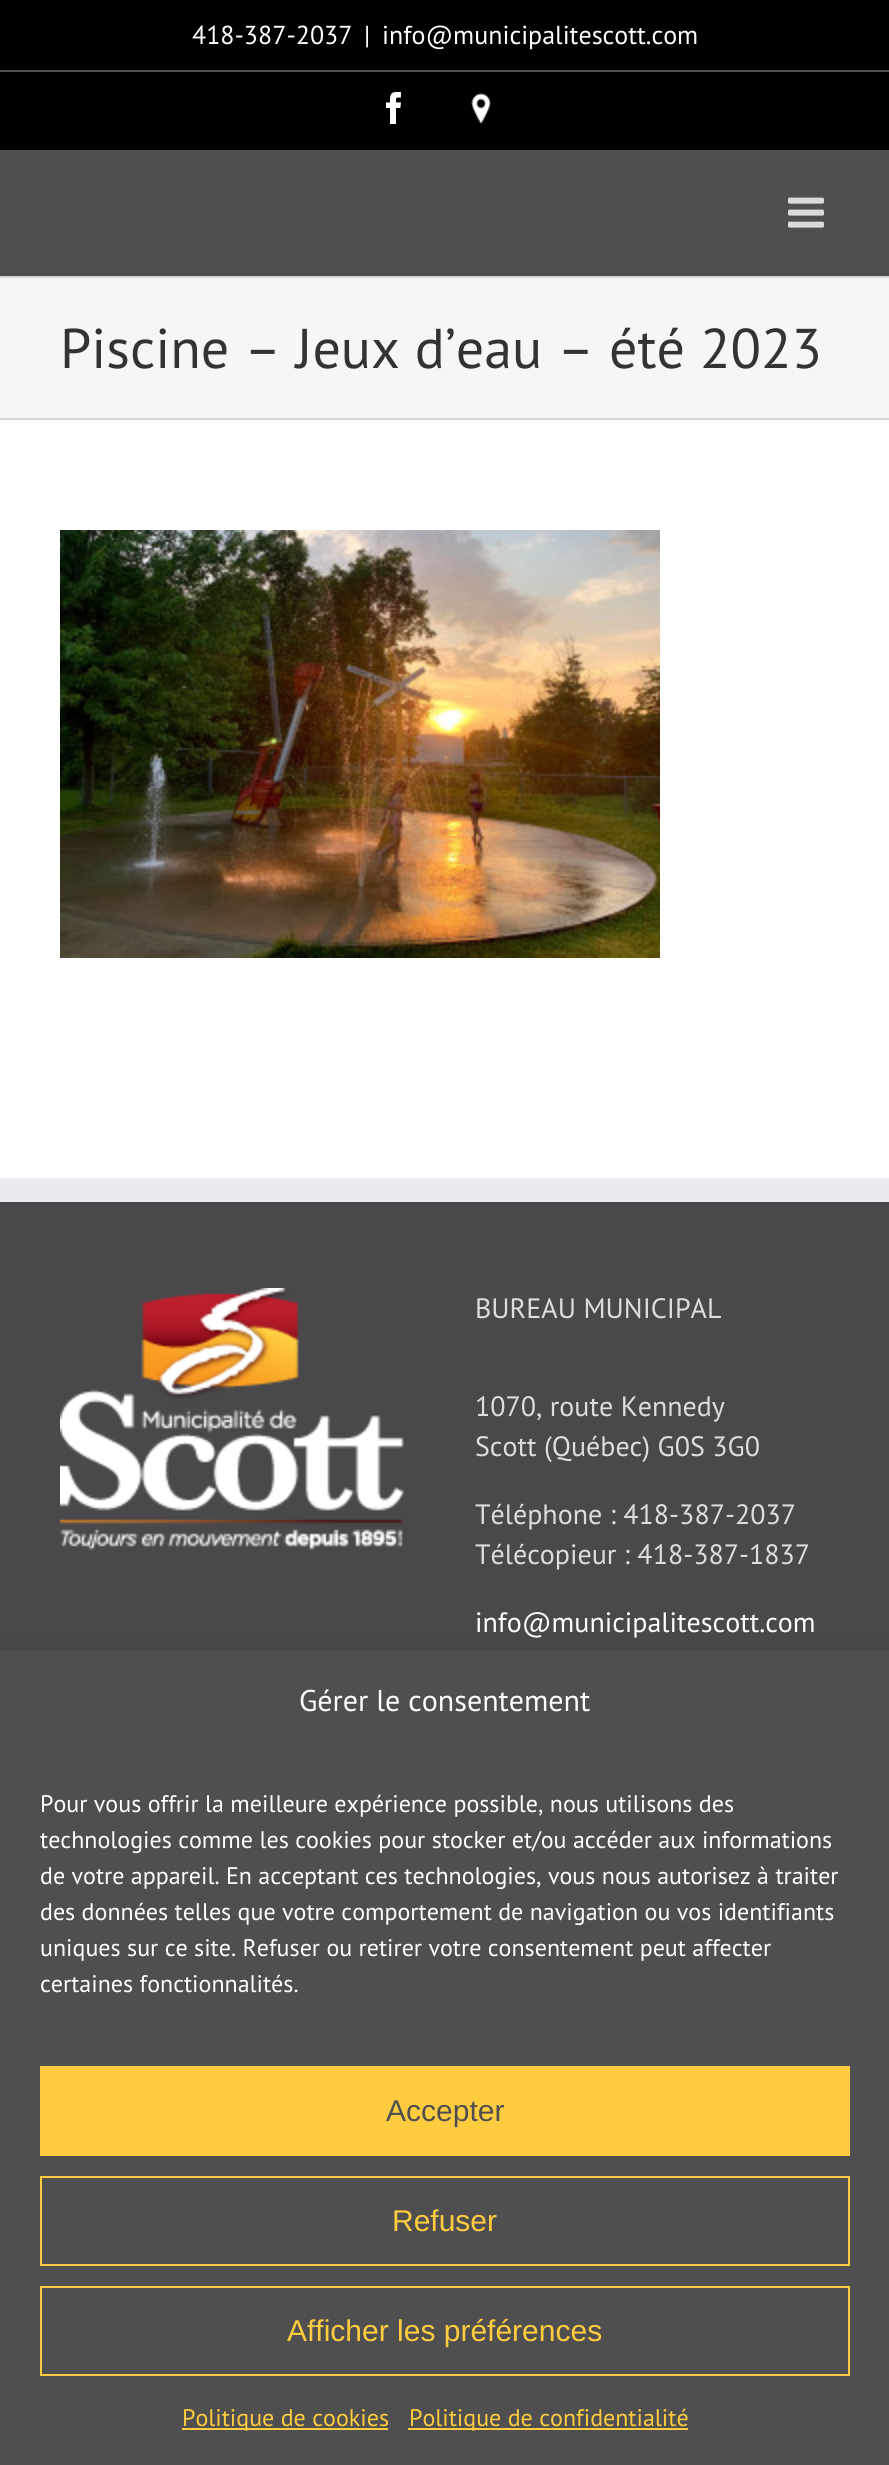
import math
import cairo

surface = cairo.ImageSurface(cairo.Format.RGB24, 889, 2465)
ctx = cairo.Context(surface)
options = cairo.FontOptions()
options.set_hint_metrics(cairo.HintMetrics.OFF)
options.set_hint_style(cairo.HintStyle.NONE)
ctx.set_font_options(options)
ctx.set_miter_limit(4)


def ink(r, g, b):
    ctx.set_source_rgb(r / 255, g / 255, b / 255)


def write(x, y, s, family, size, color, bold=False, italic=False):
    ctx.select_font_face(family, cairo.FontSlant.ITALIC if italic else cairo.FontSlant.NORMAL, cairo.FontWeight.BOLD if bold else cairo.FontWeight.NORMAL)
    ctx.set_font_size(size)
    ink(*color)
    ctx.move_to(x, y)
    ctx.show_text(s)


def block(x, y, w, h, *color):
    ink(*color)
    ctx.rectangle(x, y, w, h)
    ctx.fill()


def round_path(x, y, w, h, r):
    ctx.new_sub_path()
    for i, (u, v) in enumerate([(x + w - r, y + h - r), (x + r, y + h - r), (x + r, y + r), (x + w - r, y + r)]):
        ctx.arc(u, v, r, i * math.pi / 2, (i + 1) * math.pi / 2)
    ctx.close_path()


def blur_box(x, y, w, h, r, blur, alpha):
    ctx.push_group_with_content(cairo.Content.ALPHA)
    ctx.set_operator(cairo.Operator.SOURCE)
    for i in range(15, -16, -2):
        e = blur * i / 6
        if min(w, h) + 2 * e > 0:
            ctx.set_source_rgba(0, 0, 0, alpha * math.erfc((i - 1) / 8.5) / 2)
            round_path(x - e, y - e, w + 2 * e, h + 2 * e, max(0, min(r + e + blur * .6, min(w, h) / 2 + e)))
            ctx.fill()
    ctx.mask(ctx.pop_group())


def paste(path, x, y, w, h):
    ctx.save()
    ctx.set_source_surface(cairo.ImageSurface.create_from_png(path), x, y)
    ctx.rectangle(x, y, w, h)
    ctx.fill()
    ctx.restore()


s1 = dict(family="PT Sans", size=26, color=(255, 255, 255))
s2 = dict(family="PT Sans", size=56, color=(51, 51, 51))
s3 = dict(family="PT Sans", size=28, color=(221, 221, 221))
s4 = dict(family="PT Sans", size=28, color=(255, 255, 255))
s5 = dict(family="PT Sans", size=30, color=(255, 255, 255))
s6 = dict(family="PT Sans", size=24, color=(255, 255, 255))
s7 = dict(family="Liberation Sans", size=30, color=(79, 79, 79))
s8 = dict(family="Liberation Sans", size=30, color=(255, 204, 64))
s9 = dict(family="PT Sans", size=24, color=(255, 204, 64))

ink(255, 255, 255)
ctx.paint()
block(0, 0, 889, 150, 0, 0, 0)
block(0, 150, 889, 126, 79, 79, 79)
block(0, 70, 889, 2, 79, 79, 79)
write(192, 44, "418-387-2037", **s1)
write(364, 44, "|", **s1)
write(382, 44, "info@municipalitescott.com", **s1)
paste("pic1.png", 386, 92, 15, 32)
paste("pic2.png", 471, 93, 20, 31)
paste("pic3.png", 788, 197, 36, 31)
block(0, 278, 889, 140, 246, 246, 246)
block(0, 276, 889, 2, 210, 211, 212)
block(0, 418, 889, 2, 210, 211, 212)
write(60, 368, "Piscine – Jeux d’eau – été 2023", **s2)
paste("pic4.png", 60, 530, 600, 428)
block(0, 1202, 889, 448, 73, 73, 76)
block(0, 1178, 889, 24, 233, 234, 238)
paste("pic5.png", 60, 1288, 344, 263)
write(475, 1318, "BUREAU MUNICIPAL", **s3)
write(475, 1416, "1070, route Kennedy", **s3)
write(475, 1456, "Scott (Québec) G0S 3G0", **s3)
write(475, 1524, "Téléphone : 418-387-2037", **s3)
write(475, 1564, "Télécopieur : 418-387-1837", **s3)
write(475, 1632, "info@municipalitescott.com", **s4)
ink(0, 0, 0)
blur_box(0, 1670, 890, 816, 0, 20, 0.19)
block(0, 1650, 889, 815, 79, 79, 79)
write(299, 1711, "Gérer le consentement", **s5)
write(40, 1812, "Pour vous offrir la meilleure expérience possible, nous utilisons des", **s6)
write(40, 1848, "technologies comme les cookies pour stocker et/ou accéder aux informations", **s6)
write(40, 1884, "de votre appareil. En acceptant ces technologies, vous nous autorisez à traiter", **s6)
write(40, 1920, "des données telles que votre comportement de navigation ou vos identifiants", **s6)
write(40, 1956, "uniques sur ce site. Refuser ou retirer votre consentement peut affecter", **s6)
write(40, 1992, "certaines fonctionnalités.", **s6)
block(40, 2066, 810, 90, 255, 204, 64)
write(386, 2121, "Accepter", **s7)
ctx.rectangle(41, 2177, 808, 88)
ink(255, 204, 64)
ctx.stroke()
write(392, 2231, "Refuser", **s8)
ctx.rectangle(41, 2287, 808, 88)
ctx.stroke()
write(287, 2341, "Afficher les préférences", **s8)
block(182, 2428, 206, 2, 255, 204, 64)
write(182, 2426, "Politique de cookies", **s9)
block(408, 2428, 280, 2, 255, 204, 64)
write(409, 2426, "Politique de confidentialité", **s9)
surface.write_to_png("screenshot.png")
